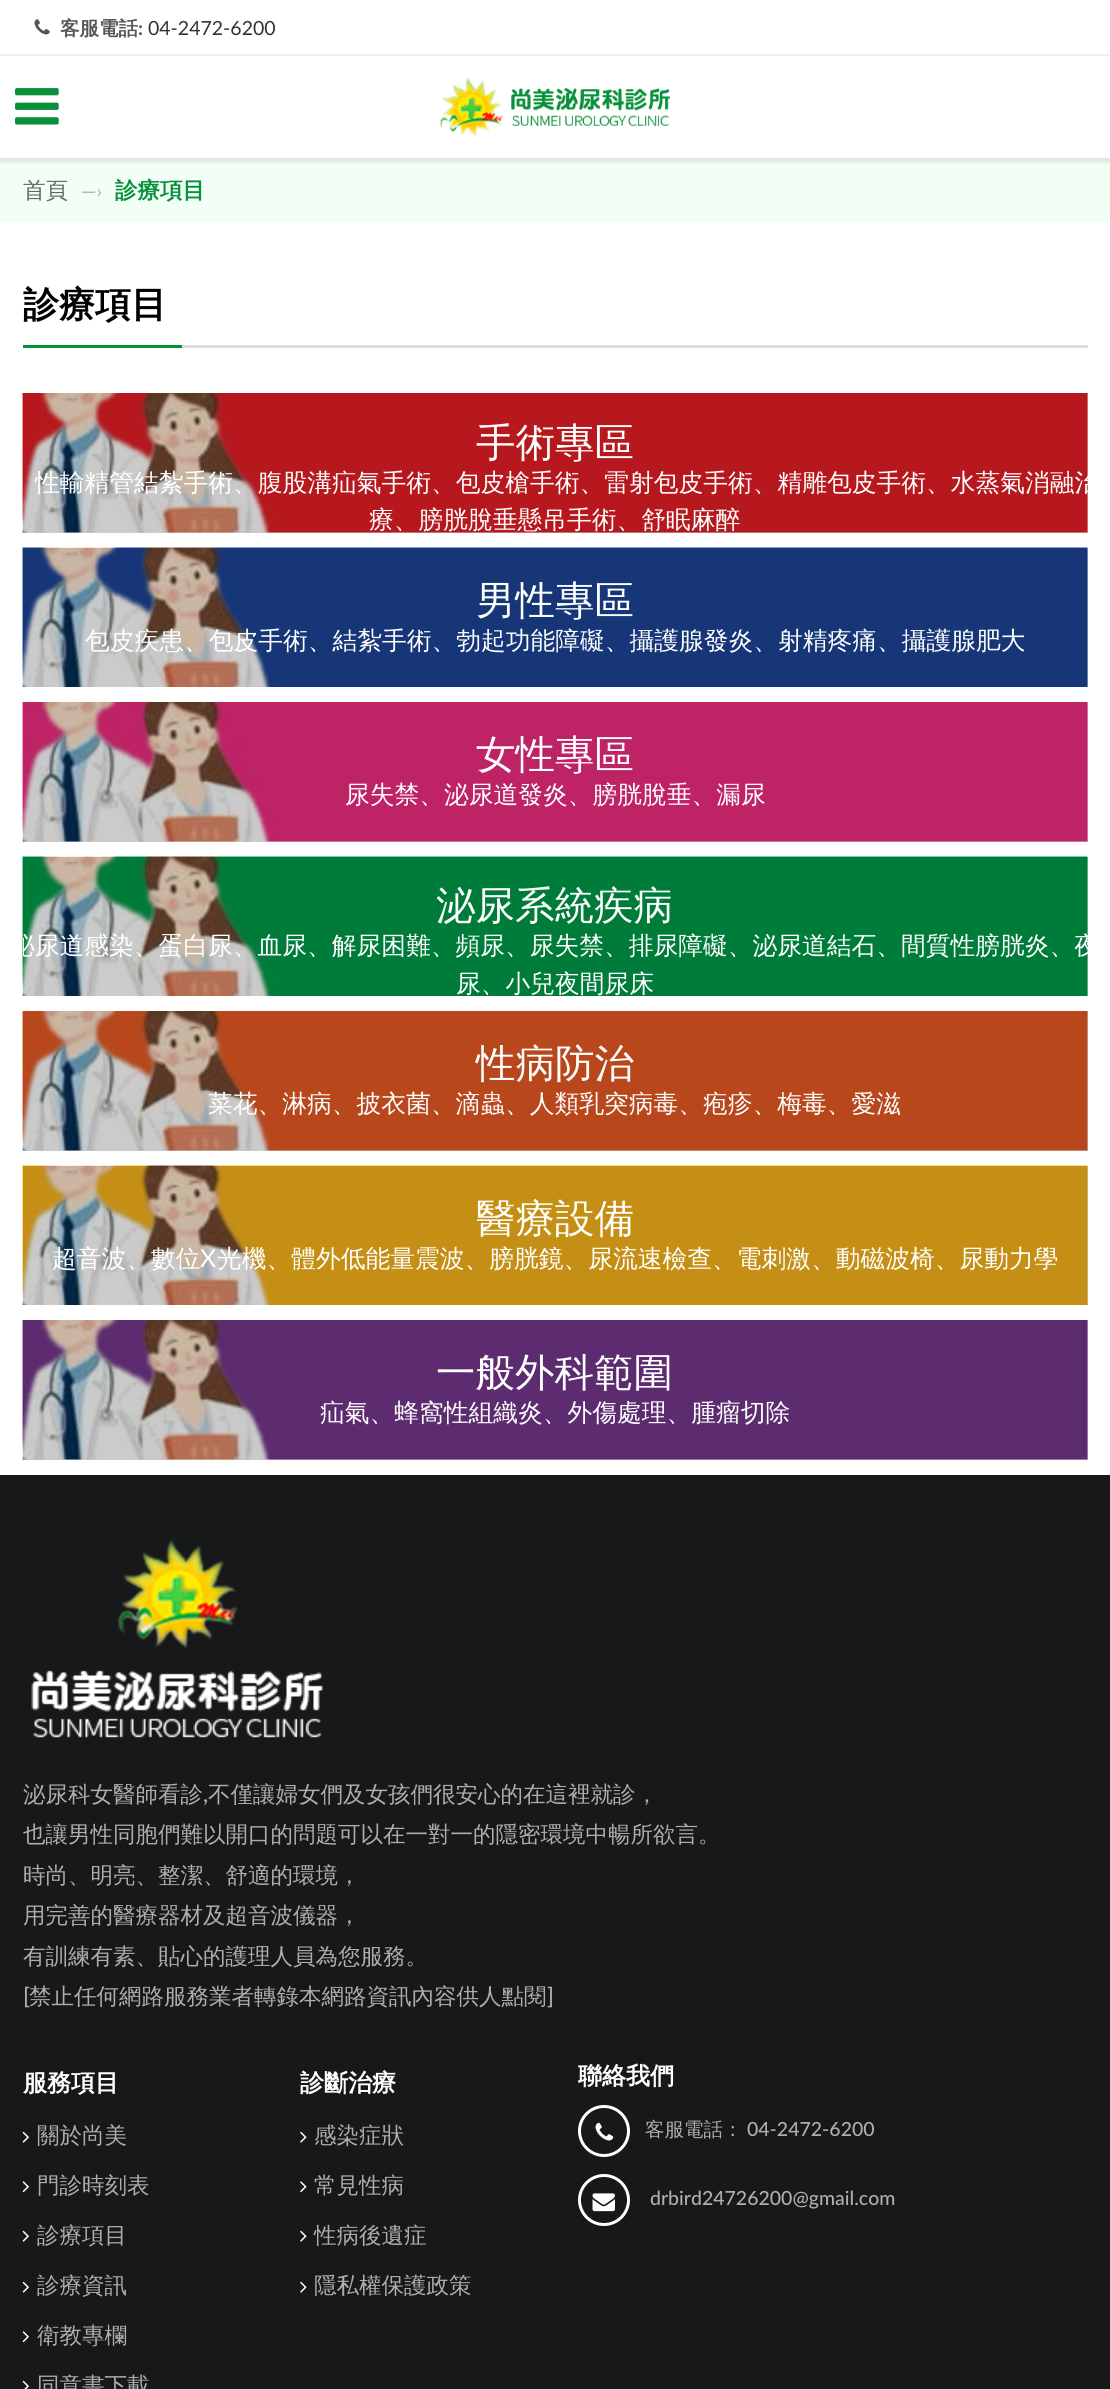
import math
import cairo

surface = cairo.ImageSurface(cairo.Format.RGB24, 1110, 2389)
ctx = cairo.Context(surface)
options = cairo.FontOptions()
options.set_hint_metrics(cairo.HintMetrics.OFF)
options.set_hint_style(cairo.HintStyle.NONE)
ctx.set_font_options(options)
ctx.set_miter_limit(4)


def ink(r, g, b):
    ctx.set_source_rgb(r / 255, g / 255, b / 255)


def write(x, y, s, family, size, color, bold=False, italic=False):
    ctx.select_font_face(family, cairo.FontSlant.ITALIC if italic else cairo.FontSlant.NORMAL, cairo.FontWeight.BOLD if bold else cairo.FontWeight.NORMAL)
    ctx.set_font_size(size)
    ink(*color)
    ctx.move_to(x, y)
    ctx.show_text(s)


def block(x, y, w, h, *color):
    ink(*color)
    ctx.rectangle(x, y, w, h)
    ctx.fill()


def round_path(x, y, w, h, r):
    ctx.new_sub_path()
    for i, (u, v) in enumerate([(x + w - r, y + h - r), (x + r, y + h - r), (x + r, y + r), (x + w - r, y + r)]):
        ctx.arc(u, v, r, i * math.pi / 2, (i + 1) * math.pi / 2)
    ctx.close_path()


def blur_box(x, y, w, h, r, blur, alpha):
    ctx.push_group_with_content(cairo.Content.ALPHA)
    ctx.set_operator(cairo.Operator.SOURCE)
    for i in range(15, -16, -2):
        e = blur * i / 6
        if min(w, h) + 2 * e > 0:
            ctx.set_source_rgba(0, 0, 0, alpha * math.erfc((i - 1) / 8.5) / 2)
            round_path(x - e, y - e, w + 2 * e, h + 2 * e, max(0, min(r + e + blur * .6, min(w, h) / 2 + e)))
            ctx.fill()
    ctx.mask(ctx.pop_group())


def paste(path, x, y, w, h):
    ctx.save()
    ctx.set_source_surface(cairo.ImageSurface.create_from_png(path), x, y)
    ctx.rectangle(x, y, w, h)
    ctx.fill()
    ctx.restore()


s1 = dict(family="WenQuanYi Zen Hei", size=19.5, color=(85, 85, 85), bold=True)
s2 = dict(family="Lato", size=19.5, color=(85, 85, 85), bold=True)
s3 = dict(family="Lato", size=19.5, color=(51, 51, 51))
s4 = dict(family="WenQuanYi Zen Hei Medium", size=22.5, color=(102, 102, 102))
s5 = dict(family="Lato", size=19.5, color=(174, 174, 174))
s6 = dict(family="WenQuanYi Zen Hei", size=22.5, color=(7, 145, 58), bold=True)
s7 = dict(family="WenQuanYi Zen Hei", size=36, color=(0, 0, 0), bold=True)
s8 = dict(family="WenQuanYi Zen Hei Medium", size=39.5, color=(255, 255, 255))
s9 = dict(family="WenQuanYi Zen Hei Medium", size=24.75, color=(255, 255, 255))
s10 = dict(family="Lato", size=24.75, color=(255, 255, 255))
s11 = dict(family="WenQuanYi Zen Hei Medium", size=22.5, color=(174, 174, 174))
s12 = dict(family="Lato Medium", size=22.5, color=(174, 174, 174))
s13 = dict(family="WenQuanYi Zen Hei", size=24, color=(255, 255, 255), bold=True)
s14 = dict(family="WenQuanYi Zen Hei Medium", size=19.5, color=(174, 174, 174))
s15 = dict(family="Lato Medium", size=19.5, color=(174, 174, 174))

ink(255, 255, 255)
ctx.paint()
block(23, 1320, 1065, 140, 204, 204, 204)
block(1087, 1166, 1, 139, 204, 204, 204)
block(23, 1011, 1065, 140, 204, 204, 204)
block(1087, 857, 1, 139, 204, 204, 204)
block(23, 702, 1065, 140, 204, 204, 204)
block(1087, 548, 1, 139, 204, 204, 204)
block(23, 393, 1065, 140, 204, 204, 204)
block(0, 158, 1110, 64, 241, 255, 246)
ink(0, 0, 0)
blur_box(0, 5, 1110, 157, 0, 2, 0.1)
block(0, 2, 1110, 156, 255, 255, 255)
block(0, 54, 1110, 2, 238, 238, 238)
paste("pic1.png", 34, 19, 16, 16)
write(60, 35, "客服電話", **s1)
write(138, 35, ":", **s2)
write(148, 35, "04-2472-6200", **s3)
paste("pic2.png", 15, 88, 44, 37)
paste("pic3.png", 439, 77, 232, 60)
write(23, 198, "首頁", **s4)
write(81, 198, "—›", **s5)
write(115, 198, "診療項目", **s6)
block(182, 345, 906, 3, 221, 221, 221)
block(23, 345, 159, 3, 7, 145, 58)
write(23, 317, "診療項目", **s7)
paste("pic4.png", 22, 393, 1066, 140)
write(476, 456, "手術專區", **s8)
ctx.save()
ctx.rectangle(23, 393, 1065, 140)
ctx.clip()
write(35, 491, "性輸精管結紮手術、腹股溝疝氣手術、包皮槍手術、雷射包皮手術、精雕包皮手術、水蒸氣消融治", **s9)
ctx.restore()
write(369, 528, "療、膀胱脫垂懸吊手術、舒眠麻醉", **s9)
paste("pic5.png", 22, 547, 1066, 140)
write(476, 614, "男性專區", **s8)
write(85, 649, "包皮疾患、包皮手術、結紮手術、勃起功能障礙、攝護腺發炎、射精疼痛、攝護腺肥大", **s9)
paste("pic6.png", 22, 702, 1066, 140)
write(476, 768, "女性專區", **s8)
write(345, 803, "尿失禁、泌尿道發炎、膀胱脫垂、漏尿", **s9)
paste("pic7.png", 22, 856, 1066, 140)
write(436, 919, "泌尿系統疾病", **s8)
ctx.save()
ctx.rectangle(23, 857, 1065, 139)
ctx.clip()
write(10, 954, "泌尿道感染、蛋白尿、血尿、解尿困難、頻尿、尿失禁、排尿障礙、泌尿道結石、間質性膀胱炎、夜", **s9)
ctx.restore()
write(456, 992, "尿、小兒夜間尿床", **s9)
paste("pic8.png", 22, 1011, 1066, 140)
write(476, 1077, "性病防治", **s8)
write(208, 1112, "菜花、淋病、披衣菌、滴蟲、人類乳突病毒、疱疹、梅毒、愛滋", **s9)
paste("pic9.png", 22, 1165, 1066, 140)
write(476, 1232, "醫療設備", **s8)
write(52, 1267, "超音波、數位", **s9)
write(200, 1267, "X", **s10)
write(217, 1267, "光機、體外低能量震波、膀胱鏡、尿流速檢查、電刺激、動磁波椅、尿動力學", **s9)
paste("pic10.png", 22, 1320, 1066, 140)
write(436, 1386, "一般外科範圍", **s8)
write(320, 1421, "疝氣、蜂窩性組織炎、外傷處理、腫瘤切除", **s9)
block(0, 1475, 1110, 914, 22, 24, 26)
paste("pic11.png", 31, 1539, 292, 199)
write(23, 1802, "泌尿科女醫師看診", **s11)
write(203, 1802, ",", **s12)
write(208, 1802, "不僅讓婦女們及女孩們很安心的在這裡就診，", **s11)
write(23, 1842, "也讓男性同胞們難以開口的問題可以在一對一的隱密環境中暢所欲言。", **s11)
write(23, 1883, "時尚、明亮、整潔、舒適的環境，", **s11)
write(23, 1923, "用完善的醫療器材及超音波儀器，", **s11)
write(23, 1964, "有訓練有素、貼心的護理人員為您服務。", **s11)
write(23, 2004, "[", **s12)
write(29, 2004, "禁止任何網路服務業者轉錄本網路資訊內容供人點閱", **s11)
write(547, 2004, "]", **s12)
write(23, 2091, "服務項目", **s13)
paste("pic12.png", 22, 2131, 7, 12)
write(37, 2143, "關於尚美", **s11)
paste("pic13.png", 22, 2181, 7, 12)
write(37, 2193, "門診時刻表", **s11)
paste("pic12.png", 22, 2230, 7, 12)
write(37, 2243, "診療項目", **s11)
paste("pic12.png", 22, 2281, 7, 12)
write(37, 2293, "診療資訊", **s11)
paste("pic13.png", 22, 2331, 7, 12)
write(37, 2343, "衛教專欄", **s11)
paste("pic14.png", 22, 2380, 7, 9)
write(37, 2393, "同意書下載", **s11)
write(300, 2091, "診斷治療", **s13)
paste("pic15.png", 300, 2131, 7, 12)
write(314, 2143, "感染症狀", **s11)
paste("pic16.png", 300, 2181, 7, 12)
write(314, 2193, "常見性病", **s11)
paste("pic15.png", 300, 2230, 7, 12)
write(314, 2243, "性病後遺症", **s11)
paste("pic15.png", 300, 2281, 7, 12)
write(314, 2293, "隱私權保護政策", **s11)
write(578, 2084, "聯絡我們", **s13)
ctx.new_path()
ctx.arc(604, 2131, 24.5, 0, 2 * math.pi)
ctx.set_line_width(3)
ctx.stroke()
paste("pic17.png", 595, 2122, 19, 19)
write(645, 2136, "客服電話：", **s14)
write(747, 2136, "04-2472-6200", **s15)
ctx.new_path()
ctx.arc(604, 2200, 24.5, 0, 2 * math.pi)
ink(255, 255, 255)
ctx.stroke()
paste("pic18.png", 592, 2193, 23, 19)
write(650, 2205, "drbird24726200@gmail.com", **s15)
surface.write_to_png("screenshot.png")
